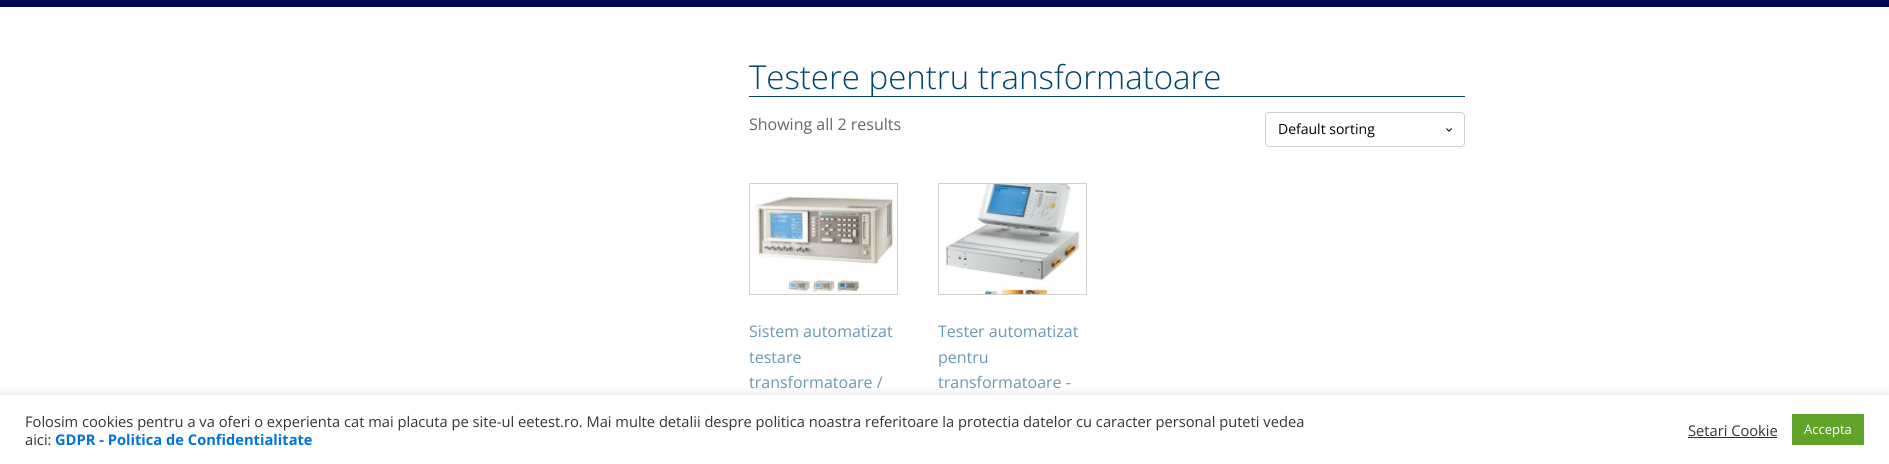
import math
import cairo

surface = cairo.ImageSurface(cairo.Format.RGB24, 1889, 464)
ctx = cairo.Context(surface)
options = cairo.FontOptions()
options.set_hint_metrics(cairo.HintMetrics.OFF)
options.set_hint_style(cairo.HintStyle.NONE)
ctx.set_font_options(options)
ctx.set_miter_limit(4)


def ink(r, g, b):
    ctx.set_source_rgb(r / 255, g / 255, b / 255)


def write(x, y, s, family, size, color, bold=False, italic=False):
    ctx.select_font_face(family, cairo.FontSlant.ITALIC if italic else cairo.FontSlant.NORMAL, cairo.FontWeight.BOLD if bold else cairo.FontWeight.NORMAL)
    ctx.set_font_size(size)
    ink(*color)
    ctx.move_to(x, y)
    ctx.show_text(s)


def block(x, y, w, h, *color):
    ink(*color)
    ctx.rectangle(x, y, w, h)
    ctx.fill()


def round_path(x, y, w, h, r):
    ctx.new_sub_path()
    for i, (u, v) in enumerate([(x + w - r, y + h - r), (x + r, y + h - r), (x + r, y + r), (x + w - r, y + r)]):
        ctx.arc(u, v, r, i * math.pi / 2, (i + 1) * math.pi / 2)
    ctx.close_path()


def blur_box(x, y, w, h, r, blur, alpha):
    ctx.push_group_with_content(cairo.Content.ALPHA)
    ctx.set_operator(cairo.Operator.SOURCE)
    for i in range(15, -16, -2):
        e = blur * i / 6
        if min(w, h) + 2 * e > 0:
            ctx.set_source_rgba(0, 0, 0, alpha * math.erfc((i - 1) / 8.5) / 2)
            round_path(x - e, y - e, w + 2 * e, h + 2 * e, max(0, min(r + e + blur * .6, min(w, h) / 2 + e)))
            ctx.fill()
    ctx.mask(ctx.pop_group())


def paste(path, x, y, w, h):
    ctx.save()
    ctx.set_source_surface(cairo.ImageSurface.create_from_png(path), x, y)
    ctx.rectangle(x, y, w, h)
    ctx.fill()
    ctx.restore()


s1 = dict(family="Open Sans Light", size=33, color=(1, 69, 106))
s2 = dict(family="Open Sans", size=16, color=(102, 102, 102))
s3 = dict(family="Open Sans", size=14, color=(0, 0, 0))
s4 = dict(family="Open Sans", size=16, color=(103, 153, 178))
s5 = dict(family="Open Sans", size=14.67, color=(51, 51, 51))
s6 = dict(family="Open Sans", size=14.67, color=(0, 116, 219), bold=True)
s7 = dict(family="Open Sans", size=13, color=(255, 255, 255))

ink(255, 255, 255)
ctx.paint()
gradient = cairo.LinearGradient(945, -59, 945, 7)
gradient.add_color_stop_rgba(0, 0.004, 0.275, 0.427, 1)
gradient.add_color_stop_rgba(1, 0, 0.02, 0.318, 1)
ctx.set_source(gradient)
ctx.rectangle(0, 0, 1889, 7)
ctx.fill()
block(749, 96, 716, 1, 1, 69, 106)
write(749, 89, "Testere pentru transformatoare", **s1)
write(749, 130, "Showing all 2 results", **s2)
paste("pic1.png", 1446, 128, 6, 4)
round_path(1265.5, 112.5, 199, 34, 3.5)
ink(211, 206, 210)
ctx.set_line_width(1)
ctx.stroke()
write(1278, 134, "Default sorting", **s3)
ctx.rectangle(749.5, 183.5, 148, 111)
ink(211, 206, 210)
ctx.stroke()
paste("pic2.png", 755, 196, 139, 98)
write(749, 337, "Sistem automatizat", **s4)
write(749, 363, "testare", **s4)
write(749, 388, "transformatoare /", **s4)
ctx.rectangle(938.5, 183.5, 148, 111)
ink(211, 206, 210)
ctx.stroke()
paste("pic3.png", 945, 184, 135, 110)
write(938, 337, "Tester automatizat", **s4)
write(938, 363, "pentru", **s4)
write(938, 388, "transformatoare -", **s4)
ink(172, 171, 171)
blur_box(0, 394, 1889, 69, 0, 5, 0.3)
block(0, 395, 1889, 69, 255, 255, 255)
write(25, 427, "Folosim cookies pentru a va oferi o experienta cat mai placuta pe site-ul eetest.ro. Mai multe detalii despre politica noastra referitoare la protectia datelor cu caracter personal puteti vedea", **s5)
write(25, 445, "aici:", **s5)
write(55, 445, "GDPR - Politica de Confidentialitate", **s6)
write(1688, 436, "Setari Cookie", **s5)
block(1688, 437, 89, 1, 51, 51, 51)
block(1792, 414, 72, 31, 97, 162, 41)
write(1804, 434, "Accepta", **s7)
surface.write_to_png("screenshot.png")
